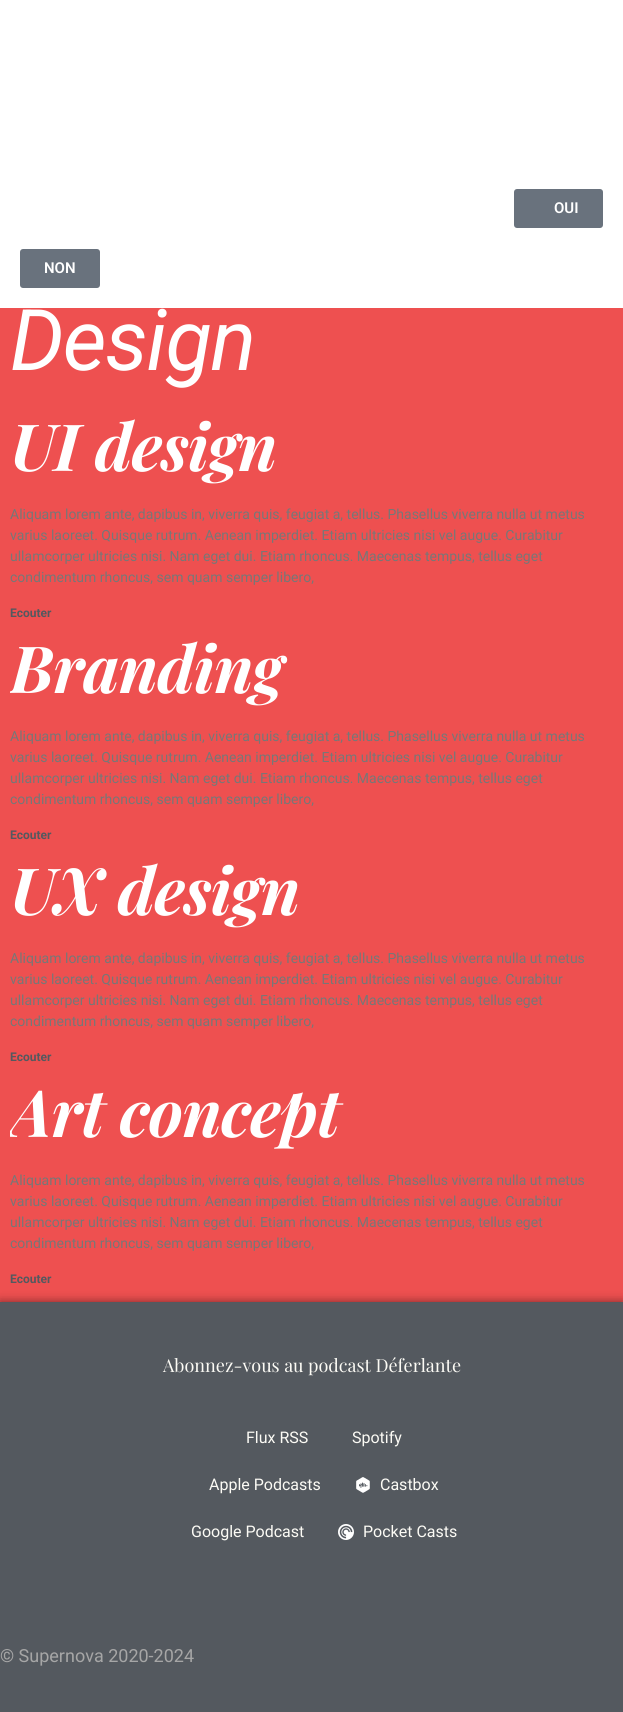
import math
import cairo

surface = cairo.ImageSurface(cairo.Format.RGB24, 623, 1712)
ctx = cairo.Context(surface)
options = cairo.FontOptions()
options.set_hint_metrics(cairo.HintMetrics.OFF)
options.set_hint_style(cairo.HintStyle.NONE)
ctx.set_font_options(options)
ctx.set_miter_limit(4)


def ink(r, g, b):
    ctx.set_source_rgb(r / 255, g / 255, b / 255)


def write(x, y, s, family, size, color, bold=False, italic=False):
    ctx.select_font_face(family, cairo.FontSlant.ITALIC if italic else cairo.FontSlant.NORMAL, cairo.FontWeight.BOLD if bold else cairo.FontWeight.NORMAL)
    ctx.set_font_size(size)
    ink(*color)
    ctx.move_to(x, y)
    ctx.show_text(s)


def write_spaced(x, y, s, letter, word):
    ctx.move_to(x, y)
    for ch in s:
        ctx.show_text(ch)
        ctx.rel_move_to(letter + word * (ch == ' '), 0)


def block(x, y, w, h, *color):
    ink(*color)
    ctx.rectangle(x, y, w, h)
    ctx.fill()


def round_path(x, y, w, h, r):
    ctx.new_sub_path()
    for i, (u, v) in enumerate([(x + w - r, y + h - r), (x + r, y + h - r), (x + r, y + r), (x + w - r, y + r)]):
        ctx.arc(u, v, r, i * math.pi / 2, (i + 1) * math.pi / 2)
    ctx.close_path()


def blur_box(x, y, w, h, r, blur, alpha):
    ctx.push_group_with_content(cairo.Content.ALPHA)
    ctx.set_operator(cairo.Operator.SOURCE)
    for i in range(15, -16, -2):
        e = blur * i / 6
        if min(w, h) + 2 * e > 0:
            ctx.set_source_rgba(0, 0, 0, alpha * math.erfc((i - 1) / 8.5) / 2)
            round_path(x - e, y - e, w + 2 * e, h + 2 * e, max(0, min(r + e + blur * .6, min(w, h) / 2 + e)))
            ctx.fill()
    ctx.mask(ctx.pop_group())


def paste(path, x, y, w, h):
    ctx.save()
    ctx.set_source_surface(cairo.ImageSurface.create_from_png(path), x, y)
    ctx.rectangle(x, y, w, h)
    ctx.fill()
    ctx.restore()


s1 = dict(family="Roboto SemiBold", size=15, color=(255, 255, 255))
s2 = dict(family="Roboto", size=14, color=(119, 119, 119))
s3 = dict(family="Roboto", size=12, color=(84, 89, 95), bold=True)
s4 = dict(family="Playfair Display", size=18, color=(252, 251, 245))
s5 = dict(family="Roboto", size=16, color=(252, 251, 245))
s6 = dict(family="Roboto", size=18, color=(166, 166, 166))

ink(238, 80, 80)
ctx.paint()
block(0, 0, 623, 308, 255, 255, 255)
ink(105, 114, 125)
round_path(514, 189, 89, 39, 3)
ctx.fill()
write(554, 213, "OUI", **s1)
ink(105, 114, 125)
round_path(20, 249, 80, 39, 3)
ctx.fill()
write(44, 273, "NON", **s1)
ctx.select_font_face("Roboto", cairo.FontSlant.ITALIC)
ctx.set_font_size(85)
write_spaced(10, 370, "Design", -1.25, 0)
ctx.select_font_face("Playfair Display", cairo.FontSlant.ITALIC, cairo.FontWeight.BOLD)
ctx.set_font_size(65)
write_spaced(10, 471, "UI design", -0.75, 0)
write(10, 519, "Aliquam lorem ante, dapibus in, viverra quis, feugiat a, tellus. Phasellus viverra nulla ut metus", **s2)
write(10, 540, "varius laoreet. Quisque rutrum. Aenean imperdiet. Etiam ultricies nisi vel augue. Curabitur", **s2)
write(10, 561, "ullamcorper ultricies nisi. Nam eget dui. Etiam rhoncus. Maecenas tempus, tellus eget", **s2)
write(10, 582, "condimentum rhoncus, sem quam semper libero,", **s2)
write(10, 617, "Ecouter", **s3)
ctx.save()
ctx.rectangle(10, 626, 603, 222)
ctx.clip()
ctx.select_font_face("Playfair Display", cairo.FontSlant.ITALIC, cairo.FontWeight.BOLD)
ctx.set_font_size(65)
ink(255, 255, 255)
write_spaced(10, 693, "Branding", -0.75, 0)
ctx.restore()
write(10, 741, "Aliquam lorem ante, dapibus in, viverra quis, feugiat a, tellus. Phasellus viverra nulla ut metus", **s2)
write(10, 762, "varius laoreet. Quisque rutrum. Aenean imperdiet. Etiam ultricies nisi vel augue. Curabitur", **s2)
write(10, 783, "ullamcorper ultricies nisi. Nam eget dui. Etiam rhoncus. Maecenas tempus, tellus eget", **s2)
write(10, 804, "condimentum rhoncus, sem quam semper libero,", **s2)
write(10, 839, "Ecouter", **s3)
ctx.select_font_face("Playfair Display", cairo.FontSlant.ITALIC, cairo.FontWeight.BOLD)
ctx.set_font_size(65)
ink(255, 255, 255)
write_spaced(10, 915, "UX design", -0.75, 0)
write(10, 963, "Aliquam lorem ante, dapibus in, viverra quis, feugiat a, tellus. Phasellus viverra nulla ut metus", **s2)
write(10, 984, "varius laoreet. Quisque rutrum. Aenean imperdiet. Etiam ultricies nisi vel augue. Curabitur", **s2)
write(10, 1005, "ullamcorper ultricies nisi. Nam eget dui. Etiam rhoncus. Maecenas tempus, tellus eget", **s2)
write(10, 1026, "condimentum rhoncus, sem quam semper libero,", **s2)
write(10, 1061, "Ecouter", **s3)
ctx.save()
ctx.rectangle(10, 1070, 603, 222)
ctx.clip()
ctx.select_font_face("Playfair Display", cairo.FontSlant.ITALIC, cairo.FontWeight.BOLD)
ctx.set_font_size(65)
ink(255, 255, 255)
write_spaced(10, 1137, "Art concept", -0.75, 0)
ctx.restore()
write(10, 1185, "Aliquam lorem ante, dapibus in, viverra quis, feugiat a, tellus. Phasellus viverra nulla ut metus", **s2)
write(10, 1206, "varius laoreet. Quisque rutrum. Aenean imperdiet. Etiam ultricies nisi vel augue. Curabitur", **s2)
write(10, 1227, "ullamcorper ultricies nisi. Nam eget dui. Etiam rhoncus. Maecenas tempus, tellus eget", **s2)
write(10, 1248, "condimentum rhoncus, sem quam semper libero,", **s2)
write(10, 1283, "Ecouter", **s3)
ink(0, 0, 0)
blur_box(0, 1302, 623, 410, 0, 5, 0.5)
block(0, 1302, 623, 410, 84, 89, 95)
write(163, 1372, "Abonnez-vous au podcast Déferlante", **s4)
write(246, 1443, "Flux RSS", **s5)
write(352, 1443, "Spotify", **s5)
write(209, 1490, "Apple Podcasts", **s5)
paste("pic1.png", 356, 1477, 14, 16)
write(380, 1490, "Castbox", **s5)
write(191, 1537, "Google Podcast", **s5)
paste("pic2.png", 338, 1524, 16, 16)
write(363, 1537, "Pocket Casts", **s5)
write(0, 1662, "© Supernova 2020-2024", **s6)
surface.write_to_png("screenshot.png")
